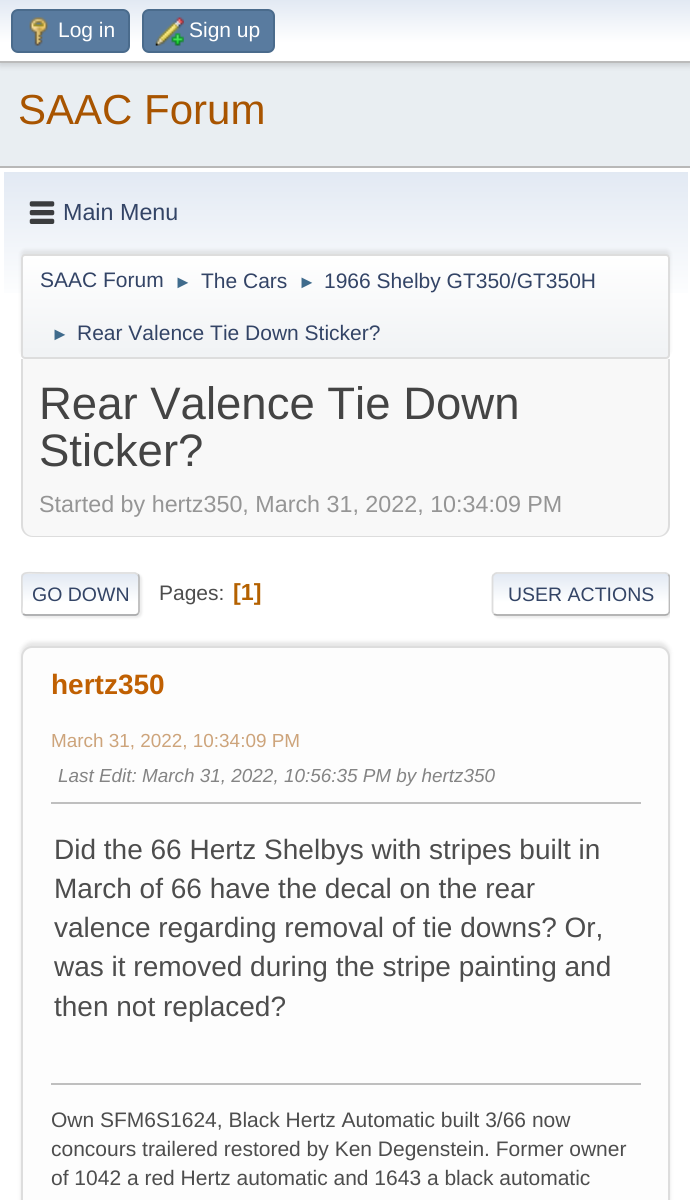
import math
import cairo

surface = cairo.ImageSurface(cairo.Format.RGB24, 690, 1200)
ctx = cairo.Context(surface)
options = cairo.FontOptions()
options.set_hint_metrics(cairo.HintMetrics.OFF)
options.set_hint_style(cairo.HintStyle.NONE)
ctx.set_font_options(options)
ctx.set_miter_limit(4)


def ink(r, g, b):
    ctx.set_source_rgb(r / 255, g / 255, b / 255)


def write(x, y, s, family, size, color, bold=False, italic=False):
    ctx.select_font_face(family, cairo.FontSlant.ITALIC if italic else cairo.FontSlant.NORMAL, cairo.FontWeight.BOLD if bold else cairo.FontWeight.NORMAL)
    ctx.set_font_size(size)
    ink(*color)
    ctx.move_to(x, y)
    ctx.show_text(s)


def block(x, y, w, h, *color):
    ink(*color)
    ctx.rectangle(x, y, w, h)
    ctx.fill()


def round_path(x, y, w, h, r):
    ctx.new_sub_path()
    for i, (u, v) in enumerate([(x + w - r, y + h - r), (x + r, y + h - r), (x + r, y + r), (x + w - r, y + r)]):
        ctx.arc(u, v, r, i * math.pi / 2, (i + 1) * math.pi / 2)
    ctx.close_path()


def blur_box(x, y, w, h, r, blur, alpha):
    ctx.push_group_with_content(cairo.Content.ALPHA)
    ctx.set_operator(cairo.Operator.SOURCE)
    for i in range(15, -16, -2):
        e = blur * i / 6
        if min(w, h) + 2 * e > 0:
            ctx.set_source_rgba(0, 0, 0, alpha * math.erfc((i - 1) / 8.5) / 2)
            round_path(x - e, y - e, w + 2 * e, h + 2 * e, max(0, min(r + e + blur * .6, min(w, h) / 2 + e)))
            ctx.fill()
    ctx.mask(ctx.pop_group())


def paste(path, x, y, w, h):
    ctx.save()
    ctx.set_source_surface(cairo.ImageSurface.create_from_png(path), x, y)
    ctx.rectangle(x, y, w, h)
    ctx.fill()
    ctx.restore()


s1 = dict(family="Liberation Sans", size=21, color=(255, 255, 255))
s2 = dict(family="Liberation Sans", size=42, color=(168, 84, 0))
s3 = dict(family="Liberation Sans", size=23.3, color=(51, 68, 102))
s4 = dict(family="Liberation Sans", size=21, color=(51, 68, 102))
s5 = dict(family="Liberation Sans", size=18, color=(63, 107, 140))
s6 = dict(family="Liberation Sans", size=45.5, color=(68, 68, 68))
s7 = dict(family="Liberation Sans", size=23.3, color=(149, 149, 149))
s8 = dict(family="Liberation Sans", size=19.5, color=(51, 68, 102))
s9 = dict(family="Liberation Sans", size=21, color=(77, 77, 77))
s10 = dict(family="Liberation Sans", size=23.3, color=(180, 97, 0), bold=True)
s11 = dict(family="Liberation Sans", size=28, color=(192, 96, 2), bold=True)
s12 = dict(family="Liberation Sans", size=18.9, color=(205, 164, 123))
s13 = dict(family="Liberation Sans", size=18.9, color=(132, 132, 132), italic=True)
s14 = dict(family="Liberation Sans", size=28, color=(77, 77, 77))

ink(233, 238, 242)
ctx.paint()
ink(0, 0, 0)
blur_box(0, 2, 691, 63, 0, 3.5, 0.16)
gradient = cairo.LinearGradient(346, 0, 346, 61)
gradient.add_color_stop_rgba(0, 0.886, 0.914, 0.953, 1)
gradient.add_color_stop_rgba(0.7, 1, 1, 1, 1)
ctx.set_source(gradient)
ctx.rectangle(0, 0, 690, 61)
ctx.fill()
block(0, 61, 690, 2, 187, 187, 187)
ink(89, 123, 159)
round_path(12, 10, 117, 42, 6)
ctx.fill_preserve()
ink(74, 107, 140)
ctx.stroke()
paste("pic1.png", 29, 17, 19, 29)
write(58, 37, "Log in", **s1)
ink(89, 123, 159)
round_path(143, 10, 131, 42, 6)
ctx.fill_preserve()
ink(74, 107, 140)
ctx.stroke()
paste("pic2.png", 155, 17, 29, 29)
write(189, 37, "Sign up", **s1)
write(18, 124, "SAAC Forum", **s2)
block(0, 168, 690, 1032, 255, 255, 255)
block(0, 166, 690, 2, 184, 184, 184)
gradient = cairo.LinearGradient(346, 171, 346, 362)
gradient.add_color_stop_rgba(0, 0.886, 0.914, 0.953, 1)
gradient.add_color_stop_rgba(0.7, 1, 1, 1, 1)
ctx.set_source(gradient)
ctx.rectangle(4, 172, 684, 121)
ctx.fill()
paste("pic3.png", 29, 201, 26, 23)
write(63, 220, "Main Menu", **s3)
ink(0, 0, 0)
blur_box(21, 250, 649, 105, 4, 2, 0.08)
ctx.save()
round_path(21, 254, 649, 105, 4)
ctx.clip()
gradient = cairo.LinearGradient(346, 255, 346, 357)
gradient.add_color_stop_rgba(0, 1, 1, 1, 1)
gradient.add_color_stop_rgba(0.95, 0.945, 0.953, 0.961, 1)
ctx.set_source(gradient)
ctx.rectangle(21, 256, 649, 101)
ctx.fill()
ctx.restore()
round_path(22, 255, 647, 103, 3)
ink(221, 221, 221)
ctx.stroke()
write(40, 287, "SAAC Forum", **s4)
write(174, 288, "►", **s5)
write(201, 288, "The Cars", **s4)
write(298, 288, "►", **s5)
write(324, 288, "1966 Shelby GT350/GT350H", **s4)
write(51, 340, "►", **s5)
write(77, 340, "Rear Valence Tie Down Sticker?", **s4)
ink(248, 248, 248)
ctx.new_path()
ctx.move_to(21, 359)
ctx.line_to(670, 359)
ctx.line_to(670, 525)
ctx.curve_to(670, 531.5, 664.5, 537, 658, 537)
ctx.line_to(33, 537)
ctx.curve_to(26.5, 537, 21, 531.5, 21, 525)
ctx.close_path()
ctx.fill()
ink(221, 221, 221)
ctx.set_fill_rule(cairo.FillRule.EVEN_ODD)
ctx.new_path()
ctx.move_to(21, 359)
ctx.line_to(670, 359)
ctx.line_to(670, 525)
ctx.curve_to(670, 532, 665, 537, 658, 537)
ctx.line_to(33, 537)
ctx.curve_to(26, 537, 21, 532, 21, 525)
ctx.close_path()
ctx.move_to(23, 359)
ctx.line_to(668, 359)
ctx.line_to(668, 525)
ctx.curve_to(668, 531, 664, 536, 658, 536)
ctx.line_to(33, 536)
ctx.curve_to(27, 536, 23, 531, 23, 525)
ctx.close_path()
ctx.fill()
write(39, 419, "Rear Valence Tie Down", **s6)
write(39, 466, "Sticker?", **s6)
write(39, 512, "Started by hertz350, March 31, 2022, 10:34:09 PM", **s7)
ink(221, 221, 221)
blur_box(23, 574, 119, 44, 5, 1, 0.57)
ink(255, 255, 255)
round_path(21, 572, 119, 44, 5)
ctx.fill()
ctx.save()
ctx.set_fill_rule(cairo.FillRule.WINDING)
round_path(21, 572, 119, 44, 5)
ctx.clip()
gradient = cairo.LinearGradient(81, 574, 81, 614)
gradient.add_color_stop_rgba(0, 0.886, 0.914, 0.953, 1)
gradient.add_color_stop_rgba(0.7, 1, 1, 1, 1)
ctx.set_source(gradient)
ctx.rectangle(21, 574, 119, 40)
ctx.fill()
gradient = cairo.LinearGradient(81, 614, 81, 655)
gradient.add_color_stop_rgba(0, 0.886, 0.914, 0.953, 1)
gradient.add_color_stop_rgba(0.7, 1, 1, 1, 1)
ctx.set_source(gradient)
ctx.rectangle(21, 614, 119, 2)
ctx.fill()
ctx.restore()
ctx.new_path()
ctx.move_to(138, 574.5)
ctx.curve_to(138.5, 575, 139, 576.5, 139, 577.5)
ctx.line_to(139, 611)
ctx.curve_to(139, 612, 138.5, 613, 138, 614)
ink(187, 187, 187)
ctx.set_line_width(1.8)
ctx.stroke()
ctx.new_path()
ctx.move_to(138, 614)
ctx.curve_to(137, 614.5, 136, 615, 135, 615)
ctx.line_to(26, 615)
ctx.curve_to(25, 615, 24, 614.5, 23, 614)
ink(170, 170, 170)
ctx.stroke()
ctx.save()
ctx.set_fill_rule(cairo.FillRule.WINDING)
ctx.rectangle(21, 564, 649, 61)
ctx.clip()
ctx.new_path()
ctx.move_to(23, 614)
ctx.curve_to(21, 611.5, 22, 607.5, 22, 605)
ctx.line_to(22, 594)
ctx.curve_to(22, 569, 18, 573, 44.5, 573)
ctx.line_to(135, 573)
ctx.line_to(138, 574.5)
ink(221, 221, 221)
ctx.stroke()
ctx.restore()
write(32, 601, "GO DOWN", **s8)
write(159, 600, "Pages:", **s9)
write(233, 600, "[1]", **s10)
ctx.save()
ctx.set_fill_rule(cairo.FillRule.WINDING)
ctx.rectangle(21, 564, 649, 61)
ctx.clip()
ink(221, 221, 221)
blur_box(494, 574, 178, 44, 5, 1, 0.57)
ctx.restore()
ink(255, 255, 255)
round_path(492, 572, 178, 44, 5)
ctx.fill()
ctx.save()
ctx.set_fill_rule(cairo.FillRule.WINDING)
round_path(492, 572, 178, 44, 5)
ctx.clip()
gradient = cairo.LinearGradient(581, 574, 581, 614)
gradient.add_color_stop_rgba(0, 0.886, 0.914, 0.953, 1)
gradient.add_color_stop_rgba(0.7, 1, 1, 1, 1)
ctx.set_source(gradient)
ctx.rectangle(492, 574, 178, 40)
ctx.fill()
ctx.restore()
ctx.save()
ctx.set_fill_rule(cairo.FillRule.WINDING)
ctx.rectangle(21, 564, 649, 61)
ctx.clip()
ctx.new_path()
ctx.move_to(668, 574.5)
ctx.curve_to(669, 575, 669.5, 576.5, 669.5, 577.5)
ctx.line_to(669.5, 611)
ctx.curve_to(669.5, 612, 669, 613, 668, 614)
ink(187, 187, 187)
ctx.stroke()
ctx.restore()
ctx.new_path()
ctx.move_to(668, 614)
ctx.curve_to(667.5, 614.5, 666, 615, 665, 615)
ctx.line_to(497, 615)
ctx.curve_to(496, 615, 494.5, 614.5, 494, 614)
ink(170, 170, 170)
ctx.stroke()
ctx.new_path()
ctx.move_to(494, 614)
ctx.curve_to(493, 613, 492.5, 612, 492.5, 611)
ctx.line_to(492.5, 577.5)
ctx.curve_to(492.5, 576.5, 493, 575, 494, 574.5)
ctx.curve_to(494.5, 573.5, 496, 573, 497, 573)
ctx.line_to(665, 573)
ctx.curve_to(666, 573, 667.5, 573.5, 668, 574.5)
ink(221, 221, 221)
ctx.stroke()
write(508, 601, "USER ACTIONS", **s8)
ink(0, 0, 0)
blur_box(21, 642, 649, 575, 11, 2, 0.1)
ink(253, 253, 253)
round_path(22, 647, 647, 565, 10)
ctx.fill_preserve()
ink(221, 221, 221)
ctx.set_line_width(2)
ctx.stroke()
write(51, 694, "hertz350", **s11)
write(51, 747, "March 31, 2022, 10:34:09 PM", **s12)
write(58, 782, "Last Edit: March 31, 2022, 10:56:35 PM by hertz350", **s13)
block(51, 802, 590, 2, 191, 191, 191)
write(54, 859, "Did the 66 Hertz Shelbys with stripes built in", **s14)
write(54, 898, "March of 66 have the decal on the rear", **s14)
write(54, 937, "valence regarding removal of tie downs? Or,", **s14)
write(54, 976, "was it removed during the stripe painting and", **s14)
write(54, 1016, "then not replaced?", **s14)
block(51, 1083, 590, 2, 191, 191, 191)
write(51, 1127, "Own SFM6S1624, Black Hertz Automatic built 3/66 now", **s9)
write(51, 1156, "concours trailered restored by Ken Degenstein. Former owner", **s9)
write(51, 1185, "of 1042 a red Hertz automatic and 1643 a black automatic", **s9)
surface.write_to_png("screenshot.png")
